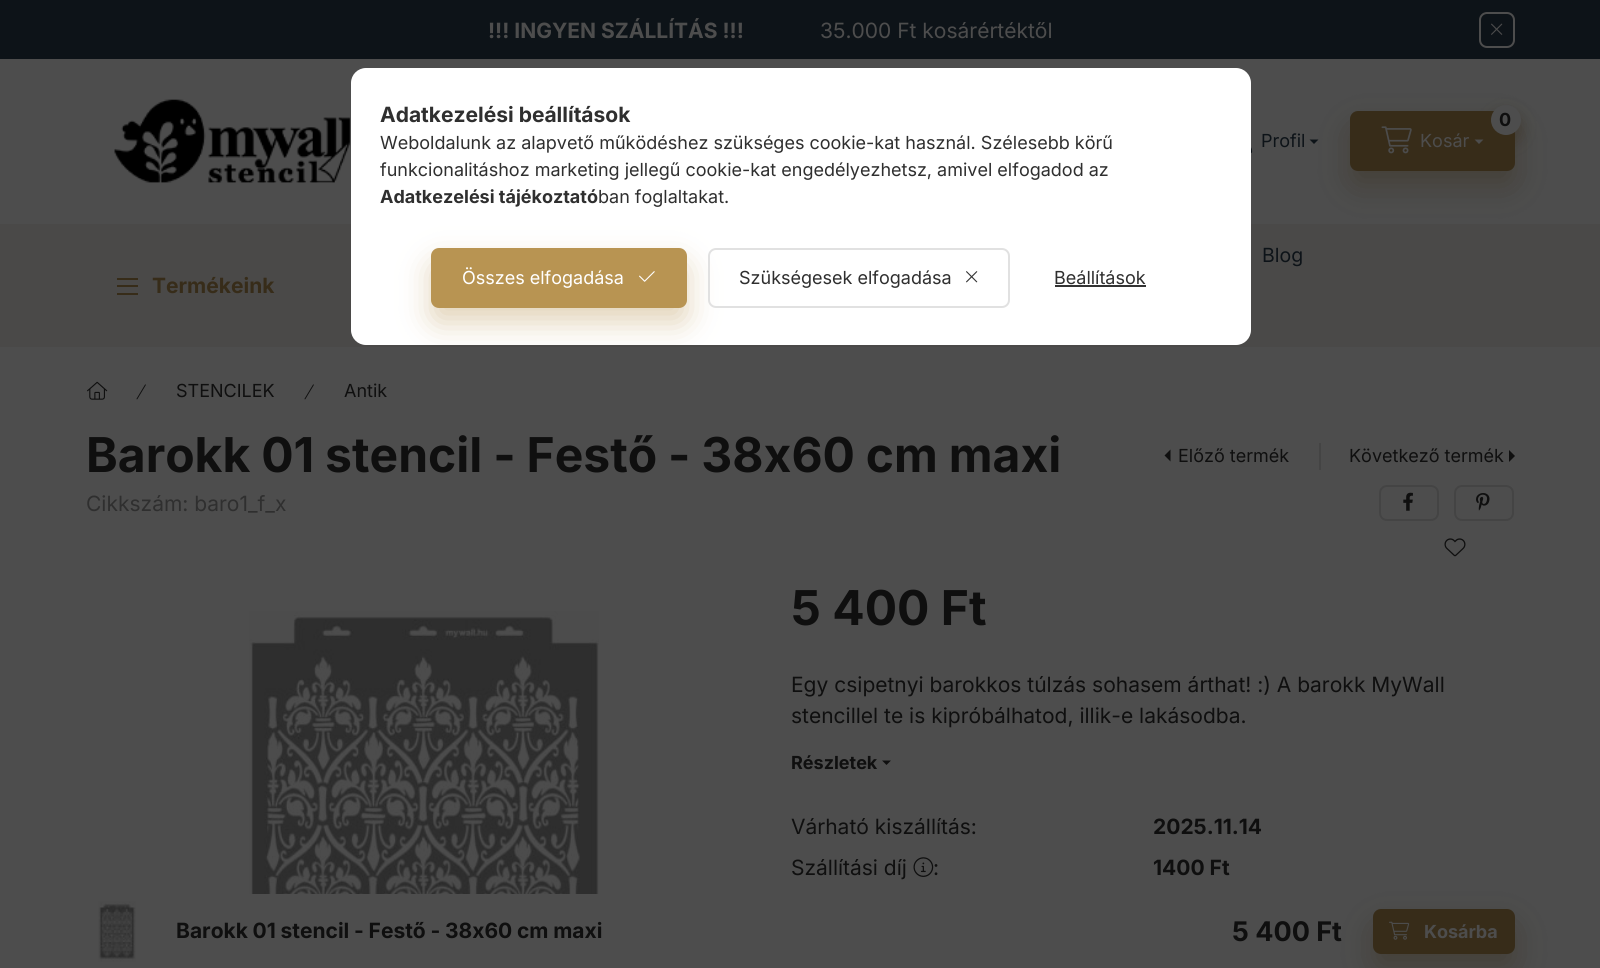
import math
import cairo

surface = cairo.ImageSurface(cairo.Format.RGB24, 1600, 968)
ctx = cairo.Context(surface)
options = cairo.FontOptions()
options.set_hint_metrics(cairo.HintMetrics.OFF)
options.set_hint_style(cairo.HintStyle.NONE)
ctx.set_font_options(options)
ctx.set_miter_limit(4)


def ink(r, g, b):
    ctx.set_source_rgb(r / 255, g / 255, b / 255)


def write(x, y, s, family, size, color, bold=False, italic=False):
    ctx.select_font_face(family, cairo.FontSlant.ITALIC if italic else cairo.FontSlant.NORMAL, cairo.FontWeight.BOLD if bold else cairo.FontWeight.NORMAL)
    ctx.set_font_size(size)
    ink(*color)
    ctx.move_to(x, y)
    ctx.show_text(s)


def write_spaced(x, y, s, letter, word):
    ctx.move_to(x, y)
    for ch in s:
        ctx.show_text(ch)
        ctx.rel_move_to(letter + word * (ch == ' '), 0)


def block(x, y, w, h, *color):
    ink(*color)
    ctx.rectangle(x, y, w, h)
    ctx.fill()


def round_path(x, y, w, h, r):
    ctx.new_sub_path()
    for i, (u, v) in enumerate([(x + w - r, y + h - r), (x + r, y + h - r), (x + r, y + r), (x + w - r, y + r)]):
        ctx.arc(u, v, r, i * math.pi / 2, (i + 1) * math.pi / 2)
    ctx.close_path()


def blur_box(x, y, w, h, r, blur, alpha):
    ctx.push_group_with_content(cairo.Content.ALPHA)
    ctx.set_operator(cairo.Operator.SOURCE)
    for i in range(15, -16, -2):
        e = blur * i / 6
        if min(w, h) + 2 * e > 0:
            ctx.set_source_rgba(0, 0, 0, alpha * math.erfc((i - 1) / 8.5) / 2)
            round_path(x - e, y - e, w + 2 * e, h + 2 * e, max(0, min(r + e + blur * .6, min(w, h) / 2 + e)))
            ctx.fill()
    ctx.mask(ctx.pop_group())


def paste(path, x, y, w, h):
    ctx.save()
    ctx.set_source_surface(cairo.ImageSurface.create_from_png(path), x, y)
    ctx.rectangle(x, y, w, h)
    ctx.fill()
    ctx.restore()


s1 = dict(family="Inter", size=21, color=(77, 77, 77), bold=True)
s2 = dict(family="Inter", size=21, color=(77, 77, 77))
s3 = dict(family="Inter", size=18, color=(13, 19, 24))
s4 = dict(family="Inter", size=18, color=(15, 15, 15), bold=True)
s5 = dict(family="Inter", size=18, color=(77, 77, 77))
s6 = dict(family="Inter", size=19.5, color=(13, 19, 24))
s7 = dict(family="Inter", size=21, color=(55, 44, 25), bold=True)
s8 = dict(family="Inter", size=18, color=(15, 15, 15))
s9 = dict(family="Inter", size=21, color=(47, 47, 47))
s10 = dict(family="Inter", size=48, color=(15, 15, 15), bold=True)
s11 = dict(family="Inter", size=21, color=(15, 15, 15))
s12 = dict(family="Inter", size=21, color=(15, 15, 15), bold=True)
s13 = dict(family="Inter", size=27, color=(15, 15, 15), bold=True)
s14 = dict(family="Inter", size=18, color=(77, 77, 77), bold=True)
s15 = dict(family="Inter", size=21, color=(47, 47, 47), bold=True)
s16 = dict(family="Inter", size=18, color=(47, 47, 47))
s17 = dict(family="Inter", size=18, color=(47, 47, 47), bold=True)
s18 = dict(family="Inter", size=18, color=(255, 255, 255))

ink(77, 77, 77)
ctx.paint()
block(0, 0, 1600, 59, 13, 19, 24)
write(488, 38, "!!! INGYEN SZÁLLÍTÁS !!!", **s1)
write(820, 38, "35.000 Ft kosárértéktől", **s2)
round_path(1480, 13, 34, 34, 7)
ctx.stroke()
paste("pic1.png", 1491, 23, 12, 12)
paste("pic2.png", 114, 99, 237, 84)
block(0, 224, 1600, 123, 74, 73, 72)
ink(55, 44, 25)
blur_box(1350, 126, 165, 60, 8, 15, 0.4)
write(1261, 147, "Profil", **s3)
ctx.new_path()
ctx.move_to(1309.5, 139.5)
ctx.line_to(1318.5, 139.5)
ctx.line_to(1314, 144)
ctx.close_path()
ctx.fill()
paste("pic3.png", 1251, 147, 2, 7)
ink(55, 44, 25)
round_path(1350, 111, 165, 60, 8)
ctx.fill()
ink(55, 44, 25)
blur_box(1491, 113, 30, 30, 15, 7.5, 0.4)
ink(77, 77, 77)
ctx.arc(1506, 120, 15, 0, 2 * math.pi)
ctx.fill()
write(1499, 126, "0", **s4)
paste("pic4.png", 1381, 126, 31, 28)
write(1420, 147, "Kosár", **s5)
ctx.new_path()
ctx.move_to(1474.5, 139.5)
ctx.line_to(1483.5, 139.5)
ctx.line_to(1479, 144)
ctx.close_path()
ctx.fill()
write(1262, 262, "Blog", **s6)
block(117, 278, 21, 2, 55, 44, 25)
block(117, 285, 21, 2, 55, 44, 25)
block(117, 293, 21, 2, 55, 44, 25)
write(152, 293, "Termékeink", **s7)
paste("pic5.png", 87, 381, 21, 19)
paste("pic6.png", 136, 384, 10, 16)
write(176, 397, "STENCILEK", **s8)
paste("pic6.png", 304, 384, 10, 16)
write(344, 397, "Antik", **s8)
ctx.select_font_face("Inter", cairo.FontSlant.NORMAL, cairo.FontWeight.BOLD)
ctx.set_font_size(48)
write_spaced(86, 472, "Barokk 01 stencil - Festő - 38x60 cm maxi", 0, -0.5)
ctx.new_path()
ctx.move_to(1170.5, 461.5)
ctx.line_to(1170.5, 449.5)
ctx.line_to(1164.5, 455.5)
ctx.close_path()
ctx.fill()
write(1178, 462, "Előző termék", **s8)
block(1319, 443, 2, 27, 68, 68, 68)
write(1349, 462, "Következő termék", **s8)
ctx.new_path()
ctx.move_to(1509, 462)
ctx.line_to(1509, 450)
ctx.line_to(1515, 456)
ctx.close_path()
ctx.fill()
write(86, 511, "Cikkszám: baro1_f_x", **s9)
round_path(1380, 486, 58, 34, 7)
ink(68, 68, 68)
ctx.stroke()
paste("pic7.png", 1403, 492, 10, 19)
round_path(1455, 486, 58, 34, 7)
ctx.stroke()
paste("pic8.png", 1476, 493, 14, 18)
paste("pic9.png", 1444, 538, 22, 19)
paste("pic10.png", 249, 611, 350, 283)
write(791, 625, "5 400 Ft", **s10)
write(791, 692, "Egy csipetnyi barokkos túlzás sohasem árthat! :) A barokk MyWall", **s11)
write(791, 723, "stencillel te is kipróbálhatod, illik-e lakásodba.", **s11)
write(791, 769, "Részletek", **s4)
ctx.new_path()
ctx.move_to(882, 760.5)
ctx.line_to(891, 760.5)
ctx.line_to(886.5, 765)
ctx.close_path()
ctx.fill()
write(791, 834, "Várható kiszállítás:", **s11)
write(1153, 834, "2025.11.14", **s12)
write(791, 875, "Szállítási díj", **s11)
paste("pic11.png", 913, 857, 21, 20)
write(933, 875, ":", **s11)
write(1153, 875, "1400 Ft", **s12)
paste("pic12.png", 98, 901, 38, 61)
write_spaced(176, 938, "Barokk 01 stencil - Festő - 38x60 cm maxi", 0, -0.25)
write(1232, 941, "5 400 Ft", **s13)
ink(55, 44, 25)
blur_box(1373, 924, 142, 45, 8, 15, 0.4)
ink(55, 44, 25)
round_path(1373, 909, 142, 45, 8)
ctx.fill()
paste("pic13.png", 1389, 921, 21, 19)
write(1424, 938, "Kosárba", **s14)
ink(255, 255, 255)
round_path(351, 68, 900, 277, 15)
ctx.fill()
write(380, 122, "Adatkezelési beállítások", **s15)
write(380, 149, "Weboldalunk az alapvető működéshez szükséges cookie-kat használ. Szélesebb körű", **s16)
write(380, 176, "funkcionalitáshoz marketing jellegű cookie-kat engedélyezhetsz, amivel elfogadod az", **s16)
write(380, 203, "Adatkezelési tájékoztató", **s17)
write(598, 203, "ban foglaltakat.", **s16)
ctx.save()
round_path(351, 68, 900, 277, 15)
ctx.clip()
ink(184, 148, 82)
blur_box(431, 263, 256, 60, 8, 15, 0.4)
ctx.restore()
ink(184, 148, 82)
round_path(432, 249, 254, 58, 7)
ctx.fill_preserve()
ctx.stroke()
write(462, 284, "Összes elfogadása", **s18)
paste("pic14.png", 639, 271, 16, 11)
round_path(709, 249, 300, 58, 7)
ink(225, 225, 225)
ctx.stroke()
write(739, 284, "Szükségesek elfogadása", **s16)
paste("pic15.png", 966, 271, 12, 12)
write(1054, 284, "Beállítások", **s16)
block(1055, 285, 91, 2, 51, 51, 51)
surface.write_to_png("screenshot.png")
